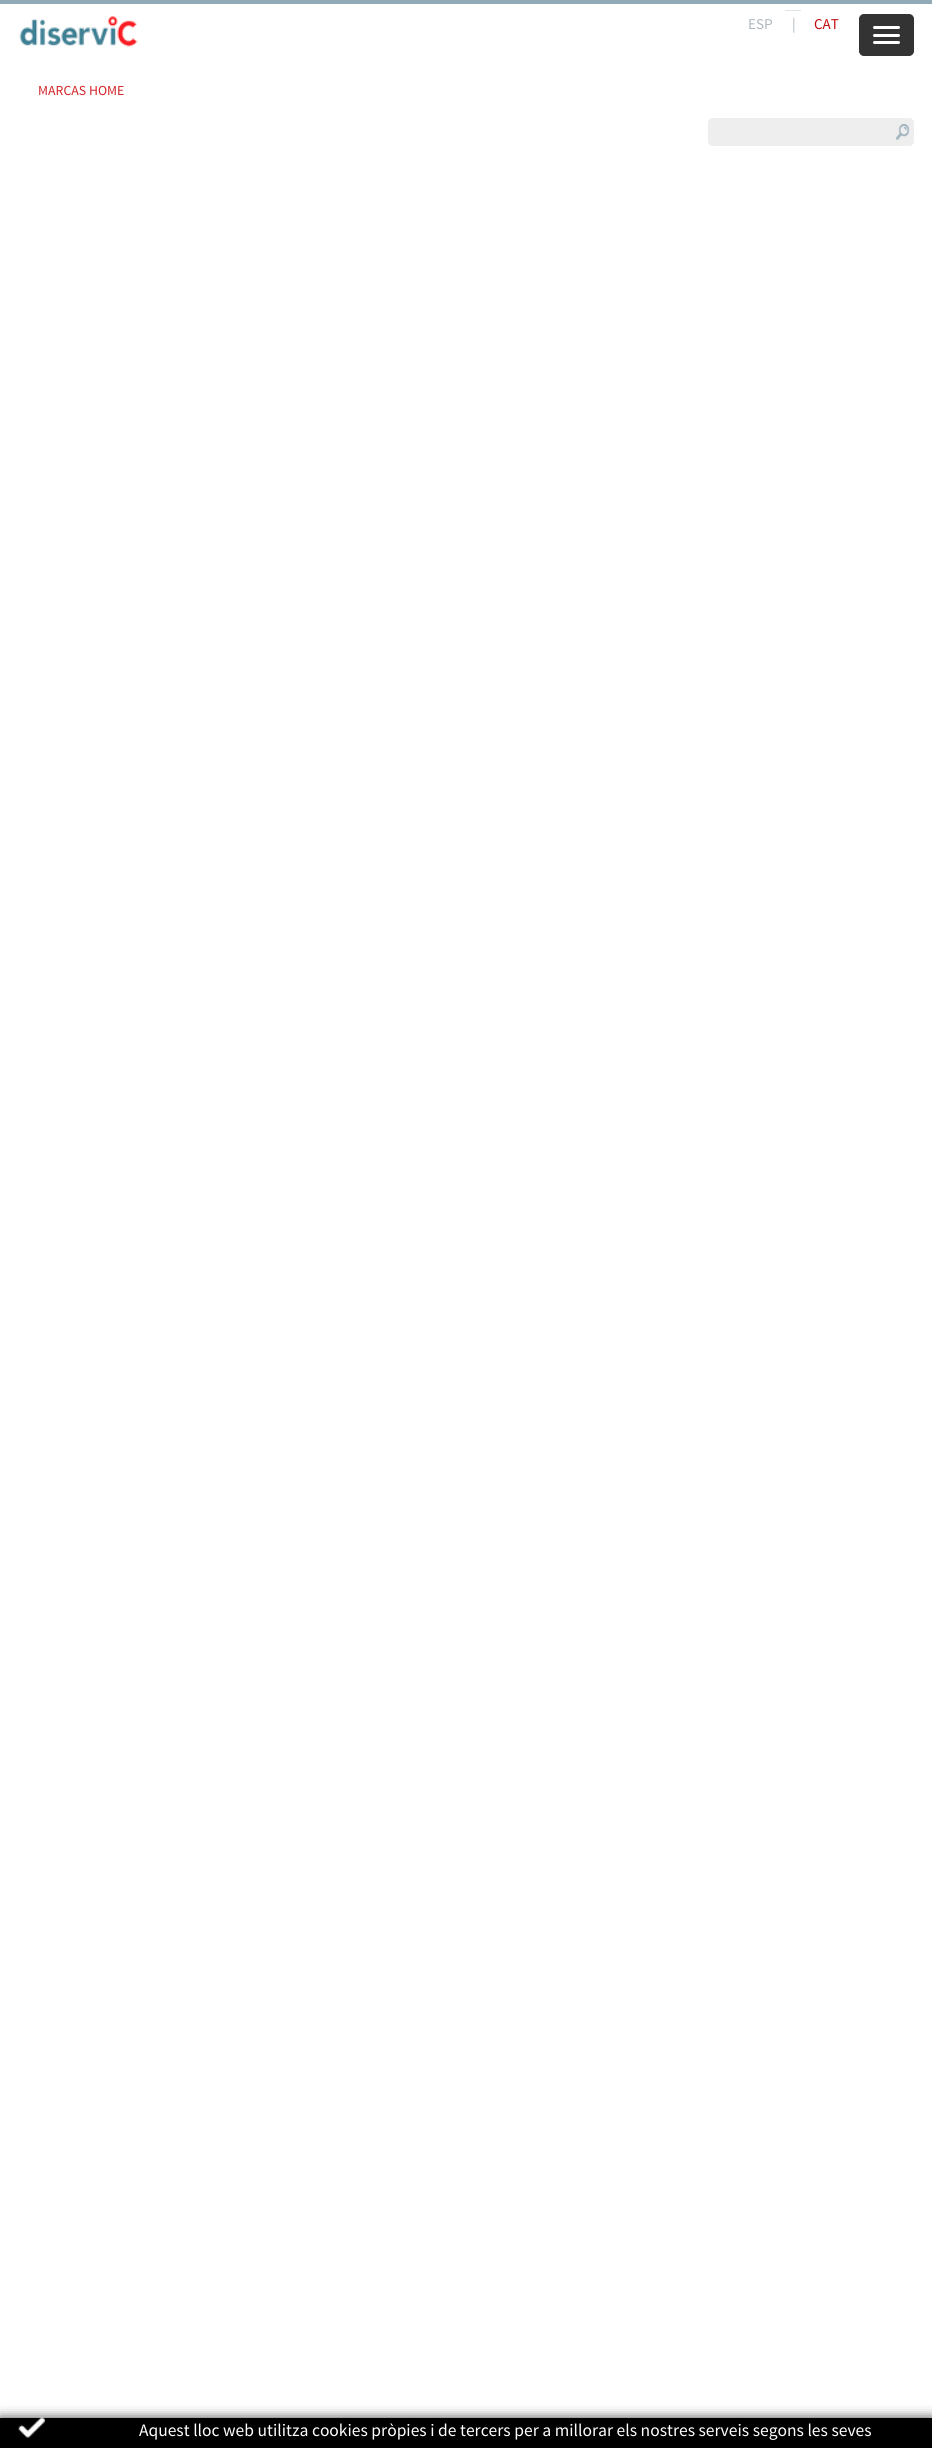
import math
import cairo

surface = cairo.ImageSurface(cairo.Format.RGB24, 932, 2448)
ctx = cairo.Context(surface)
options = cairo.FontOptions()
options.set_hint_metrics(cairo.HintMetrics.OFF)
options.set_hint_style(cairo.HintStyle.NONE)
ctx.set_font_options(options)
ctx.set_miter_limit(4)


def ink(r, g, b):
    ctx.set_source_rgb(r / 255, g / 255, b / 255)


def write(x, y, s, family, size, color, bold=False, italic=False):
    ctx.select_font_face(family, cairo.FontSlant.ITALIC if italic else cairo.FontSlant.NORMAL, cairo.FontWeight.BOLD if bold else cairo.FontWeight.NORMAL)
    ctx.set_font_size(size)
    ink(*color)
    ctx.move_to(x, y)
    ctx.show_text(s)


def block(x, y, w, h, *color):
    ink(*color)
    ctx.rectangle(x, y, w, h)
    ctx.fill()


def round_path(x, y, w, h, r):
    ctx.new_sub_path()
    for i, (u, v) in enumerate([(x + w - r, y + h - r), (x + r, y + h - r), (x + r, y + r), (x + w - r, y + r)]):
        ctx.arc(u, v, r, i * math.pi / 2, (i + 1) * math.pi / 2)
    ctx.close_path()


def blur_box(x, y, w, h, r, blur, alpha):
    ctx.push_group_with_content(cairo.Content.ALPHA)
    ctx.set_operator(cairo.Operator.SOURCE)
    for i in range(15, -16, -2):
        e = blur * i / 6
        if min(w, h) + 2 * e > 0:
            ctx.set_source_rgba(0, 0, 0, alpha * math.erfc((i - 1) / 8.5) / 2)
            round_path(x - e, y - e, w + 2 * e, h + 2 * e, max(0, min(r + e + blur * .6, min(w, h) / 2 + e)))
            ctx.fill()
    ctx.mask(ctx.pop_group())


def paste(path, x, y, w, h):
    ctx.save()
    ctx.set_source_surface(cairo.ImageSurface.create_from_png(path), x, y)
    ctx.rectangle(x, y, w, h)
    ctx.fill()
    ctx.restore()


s1 = dict(family="Source Sans Pro", size=15, color=(173, 183, 189))
s2 = dict(family="Source Sans Pro", size=15, color=(193, 14, 14))
s3 = dict(family="Source Sans Pro", size=13.75, color=(210, 37, 42))
s4 = dict(family="Source Sans Pro", size=17.5, color=(255, 255, 255))

ink(255, 255, 255)
ctx.paint()
block(0, 0, 932, 4, 144, 170, 182)
paste("pic1.png", 19, 16, 119, 31)
ink(51, 51, 51)
round_path(859.5, 14.5, 54, 41, 4.5)
ctx.fill_preserve()
ctx.set_line_width(1)
ctx.stroke()
ink(255, 255, 255)
round_path(873, 26, 27, 3, 1.5)
ctx.fill()
round_path(873, 34, 27, 3, 1.5)
ctx.fill()
round_path(873, 41, 27, 3, 1.5)
ctx.fill()
write(748, 29, "ESP", **s1)
block(785, 10, 16, 1, 222, 229, 233)
write(792, 29, "|", **s1)
write(814, 29, "CAT", **s2)
write(38, 95, "MARCAS HOME", **s3)
ink(238, 238, 238)
ctx.new_path()
ctx.move_to(713, 118)
ctx.line_to(891, 118)
ctx.line_to(891, 146)
ctx.line_to(713, 146)
ctx.curve_to(710, 146, 708, 144, 708, 141)
ctx.line_to(708, 123)
ctx.curve_to(708, 120, 710, 118, 713, 118)
ctx.close_path()
ctx.fill()
ctx.new_path()
ctx.move_to(891, 118)
ctx.line_to(909, 118)
ctx.curve_to(912, 118, 914, 120, 914, 123)
ctx.line_to(914, 141)
ctx.curve_to(914, 144, 912, 146, 909, 146)
ctx.line_to(891, 146)
ctx.close_path()
ctx.fill()
paste("pic2.png", 895, 124, 15, 16)
ink(68, 68, 68)
blur_box(0, 2418, 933, 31, 0, 6, 1)
block(0, 2418, 932, 30, 0, 0, 0)
paste("pic3.png", 18, 2417, 27, 21)
write(139, 2436, "Aquest lloc web utilitza cookies pròpies i de tercers per a millorar els nostres serveis segons les seves", **s4)
surface.write_to_png("screenshot.png")
